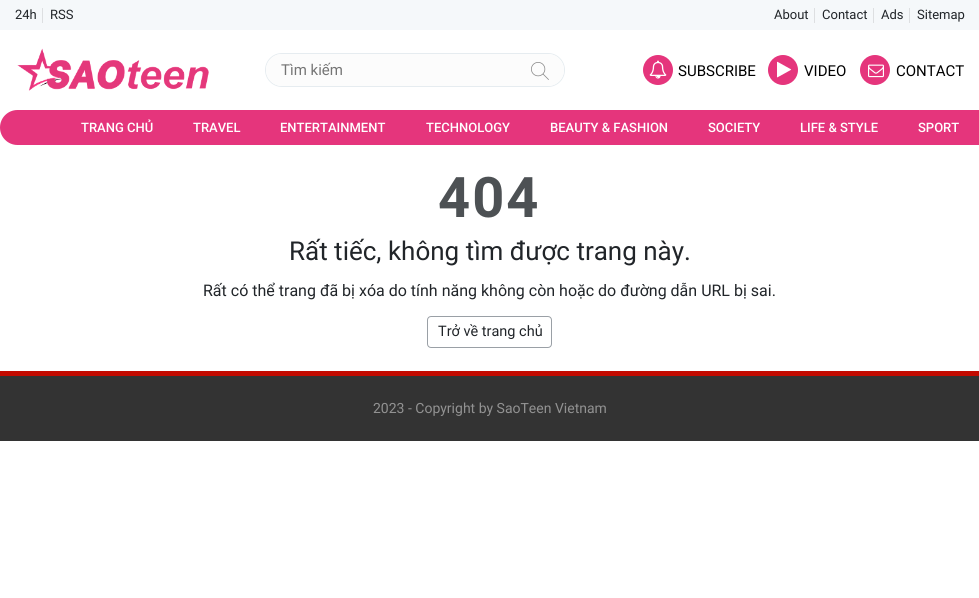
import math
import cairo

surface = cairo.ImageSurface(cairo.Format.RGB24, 979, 598)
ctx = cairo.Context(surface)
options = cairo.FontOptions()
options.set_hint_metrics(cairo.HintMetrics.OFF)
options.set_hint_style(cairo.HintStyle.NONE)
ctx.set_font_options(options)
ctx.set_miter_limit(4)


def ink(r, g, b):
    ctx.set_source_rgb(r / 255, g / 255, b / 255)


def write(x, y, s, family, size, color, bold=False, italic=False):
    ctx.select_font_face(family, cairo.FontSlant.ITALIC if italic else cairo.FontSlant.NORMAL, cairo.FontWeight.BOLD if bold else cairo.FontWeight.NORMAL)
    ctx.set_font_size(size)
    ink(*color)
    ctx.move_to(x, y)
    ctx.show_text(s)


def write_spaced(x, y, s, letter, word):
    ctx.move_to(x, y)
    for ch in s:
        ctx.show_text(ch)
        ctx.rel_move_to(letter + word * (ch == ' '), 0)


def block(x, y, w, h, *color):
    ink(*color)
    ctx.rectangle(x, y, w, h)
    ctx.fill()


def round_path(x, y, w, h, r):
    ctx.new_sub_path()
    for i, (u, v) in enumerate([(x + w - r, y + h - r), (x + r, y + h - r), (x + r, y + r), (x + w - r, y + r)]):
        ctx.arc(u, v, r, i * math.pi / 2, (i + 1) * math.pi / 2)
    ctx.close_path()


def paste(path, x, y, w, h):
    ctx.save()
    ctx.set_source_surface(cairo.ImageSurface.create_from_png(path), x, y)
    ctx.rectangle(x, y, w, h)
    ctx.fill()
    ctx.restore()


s1 = dict(family="Roboto", size=13, color=(33, 37, 41))
s2 = dict(family="Roboto", size=15, color=(117, 117, 117))
s3 = dict(family="Roboto", size=15, color=(0, 0, 0))
s4 = dict(family="Roboto Medium", size=13, color=(255, 255, 255))
s5 = dict(family="Roboto", size=26, color=(33, 37, 41))
s6 = dict(family="Roboto", size=16, color=(33, 37, 41))
s7 = dict(family="Roboto", size=14.5, color=(33, 37, 41))
s8 = dict(family="Roboto", size=14, color=(146, 146, 146))

ink(255, 255, 255)
ctx.paint()
block(0, 0, 979, 30, 245, 248, 250)
write(15, 19, "24h", **s1)
block(42, 8, 1, 15, 221, 223, 225)
write(50, 19, "RSS", **s1)
write(774, 19, "About", **s1)
block(814, 8, 1, 15, 221, 223, 225)
write(822, 19, "Contact", **s1)
block(873, 8, 1, 15, 221, 223, 225)
write(881, 19, "Ads", **s1)
block(909, 8, 1, 15, 221, 223, 225)
write(917, 19, "Sitemap", **s1)
paste("pic1.png", 17, 48, 192, 43)
round_path(265.5, 53.5, 299, 33, 16.5)
ink(230, 236, 240)
ctx.set_line_width(1)
ctx.stroke()
ink(252, 252, 252)
round_path(266, 54, 298, 32, 16)
ctx.fill()
write(281, 75, "Tìm kiếm", **s2)
paste("pic2.png", 531, 62, 18, 18)
ink(229, 53, 124)
ctx.arc(658, 70, 15, 0, 2 * math.pi)
ctx.fill()
paste("pic3.png", 649, 60, 18, 19)
write(678, 76, "SUBSCRIBE", **s3)
ink(229, 53, 124)
ctx.new_path()
ctx.arc(783, 70, 15, 0, 2 * math.pi)
ctx.fill()
paste("pic4.png", 777, 61, 15, 17)
write(804, 76, "VIDEO", **s3)
ink(229, 53, 124)
ctx.new_path()
ctx.arc(875, 70, 15, 0, 2 * math.pi)
ctx.fill()
paste("pic5.png", 868, 64, 16, 14)
write(896, 76, "CONTACT", **s3)
ink(229, 53, 124)
round_path(0, 110, 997, 35, 17.5)
ctx.fill()
write(81, 132, "TRANG CHỦ", **s4)
write(193, 132, "TRAVEL", **s4)
write(280, 132, "ENTERTAINMENT", **s4)
write(426, 132, "TECHNOLOGY", **s4)
write(550, 132, "BEAUTY & FASHION", **s4)
write(708, 132, "SOCIETY", **s4)
write(800, 132, "LIFE & STYLE", **s4)
write(918, 132, "SPORT", **s4)
ctx.select_font_face("Roboto", cairo.FontSlant.NORMAL, cairo.FontWeight.BOLD)
ctx.set_font_size(56)
ink(77, 81, 84)
write_spaced(438, 217, "404", 2, 0)
write(289, 260, "Rất tiếc, không tìm được trang này.", **s5)
write(203, 296, "Rất có thể trang đã bị xóa do tính năng không còn hoặc do đường dẫn URL bị sai.", **s6)
round_path(427.5, 316.5, 124, 31, 3.5)
ink(154, 160, 166)
ctx.stroke()
write(438, 336, "Trở về trang chủ", **s7)
block(0, 376, 979, 65, 51, 51, 51)
block(0, 371, 979, 5, 194, 10, 0)
write(373, 413, "2023 - Copyright by SaoTeen Vietnam", **s8)
surface.write_to_png("screenshot.png")
